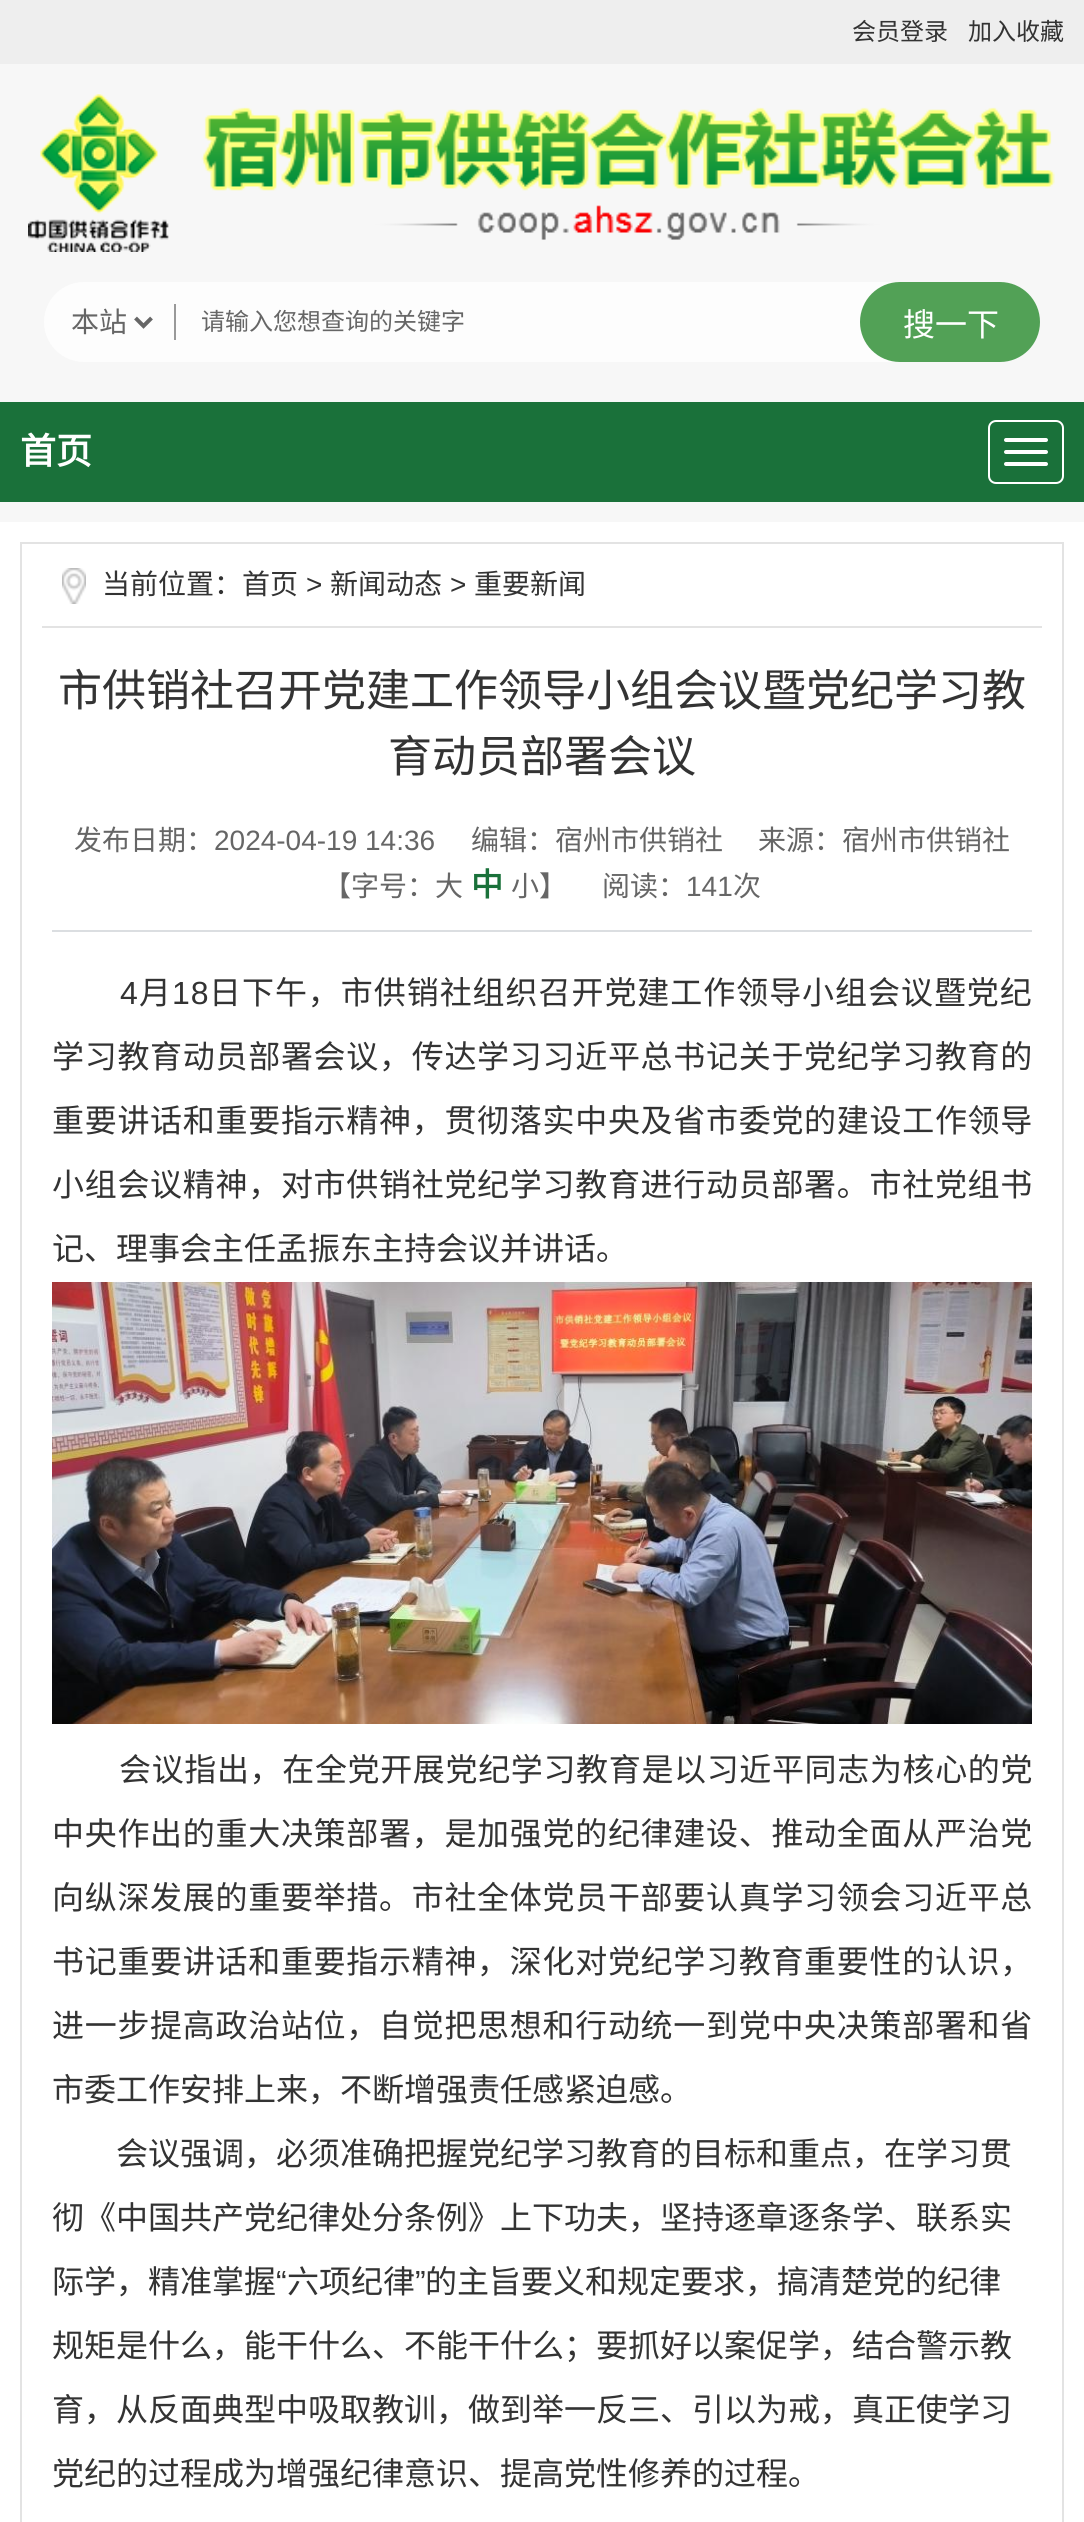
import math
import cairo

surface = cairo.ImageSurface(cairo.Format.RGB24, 1084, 2522)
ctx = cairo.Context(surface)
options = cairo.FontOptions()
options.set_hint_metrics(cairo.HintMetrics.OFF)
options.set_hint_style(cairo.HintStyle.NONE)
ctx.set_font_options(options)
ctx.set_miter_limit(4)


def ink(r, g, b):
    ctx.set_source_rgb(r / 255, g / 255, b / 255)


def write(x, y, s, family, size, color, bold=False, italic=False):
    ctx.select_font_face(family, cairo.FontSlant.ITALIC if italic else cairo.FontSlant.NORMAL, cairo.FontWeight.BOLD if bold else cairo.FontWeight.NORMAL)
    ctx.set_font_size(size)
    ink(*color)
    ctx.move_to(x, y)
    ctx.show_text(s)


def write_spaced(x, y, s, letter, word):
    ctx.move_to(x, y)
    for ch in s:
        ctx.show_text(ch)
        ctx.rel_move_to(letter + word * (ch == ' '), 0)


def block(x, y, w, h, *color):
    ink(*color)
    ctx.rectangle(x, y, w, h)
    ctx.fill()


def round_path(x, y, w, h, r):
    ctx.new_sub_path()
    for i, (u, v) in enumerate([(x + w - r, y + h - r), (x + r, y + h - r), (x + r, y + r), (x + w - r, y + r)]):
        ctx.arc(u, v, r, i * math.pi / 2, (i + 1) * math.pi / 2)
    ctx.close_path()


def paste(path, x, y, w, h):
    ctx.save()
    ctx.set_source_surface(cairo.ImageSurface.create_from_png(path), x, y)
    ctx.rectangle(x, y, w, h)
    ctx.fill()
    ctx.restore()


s1 = dict(family="Noto Sans CJK SC", size=24, color=(51, 51, 51))
s2 = dict(family="Noto Sans CJK SC", size=28, color=(102, 102, 102))
s3 = dict(family="Noto Sans CJK SC", size=24, color=(102, 102, 102))
s4 = dict(family="Noto Sans CJK SC", size=32, color=(255, 255, 255))
s5 = dict(family="Noto Sans CJK SC", size=36, color=(255, 255, 255), bold=True)
s6 = dict(family="Noto Sans CJK SC", size=28, color=(51, 51, 51))
s7 = dict(family="Liberation Sans", size=28, color=(51, 51, 51))
s8 = dict(family="Noto Sans CJK SC", size=44, color=(51, 51, 51))
s9 = dict(family="Liberation Sans", size=28, color=(102, 102, 102))
s10 = dict(family="Noto Sans CJK SC", size=32, color=(26, 113, 58), bold=True)
s11 = dict(family="Noto Sans CJK SC", size=32, color=(51, 51, 51))
s12 = dict(family="Liberation Sans", size=32, color=(51, 51, 51))

ink(247, 247, 247)
ctx.paint()
block(0, 0, 1084, 64, 238, 238, 238)
write(852, 40, "会员登录", **s1)
write(968, 40, "加入收藏", **s1)
paste("pic1.png", 28, 94, 1027, 158)
ink(253, 253, 253)
round_path(44, 282, 996, 80, 40)
ctx.fill()
block(174, 304, 2, 36, 153, 153, 153)
ctx.new_path()
ctx.move_to(135.5, 318)
ctx.line_to(143.5, 326)
ctx.line_to(151.5, 318)
ink(102, 102, 102)
ctx.set_line_width(4)
ctx.stroke()
write(71, 332, "本站", **s2)
write(201, 330, "请输入您想查询的关键字", **s3)
ink(82, 161, 86)
round_path(860, 282, 180, 80, 40)
ctx.fill()
write(903, 336, "搜一下", **s4)
block(0, 402, 1084, 100, 26, 113, 58)
write(20, 464, "首页", **s5)
round_path(989, 421, 74, 62, 7)
ctx.set_line_width(2)
ctx.stroke()
round_path(1004, 438, 44, 4, 2)
ctx.fill()
round_path(1004, 450, 44, 4, 2)
ctx.fill()
round_path(1004, 462, 44, 4, 2)
ctx.fill()
block(0, 522, 1084, 2000, 255, 255, 255)
ctx.rectangle(21, 543, 1042, 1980)
ink(227, 227, 227)
ctx.stroke()
paste("pic2.png", 62, 568, 24, 36)
block(42, 626, 1000, 2, 227, 227, 227)
write(102, 594, "当前位置：首页", **s6)
write(306, 594, ">", **s7)
write(330, 594, "新闻动态", **s6)
write(450, 594, ">", **s7)
write(474, 594, "重要新闻", **s6)
write(58, 706, "市供销社召开党建工作领导小组会议暨党纪学习教", **s8)
write(388, 772, "育动员部署会议", **s8)
block(52, 930, 980, 2, 219, 222, 225)
write(74, 850, "发布日期：", **s2)
write(214, 850, "2024-04-19 14:36", **s9)
write(471, 850, "编辑：宿州市供销社", **s2)
write(758, 850, "来源：宿州市供销社", **s2)
write(323, 896, "【字号：大", **s2)
write(471, 896, "中", **s10)
write(511, 896, "小】", **s2)
write(602, 896, "阅读：", **s2)
write(686, 896, "141", **s9)
write(733, 896, "次", **s2)
ctx.select_font_face("Liberation Sans")
ctx.set_font_size(32)
ink(51, 51, 51)
write_spaced(120, 1004, "4", 0.95, 0)
ctx.select_font_face("Noto Sans CJK SC")
write_spaced(139, 1004, "月", 0.95, 0)
ctx.select_font_face("Liberation Sans")
write_spaced(172, 1004, "18", 0.95, 0)
ctx.select_font_face("Noto Sans CJK SC")
write_spaced(209, 1004, "日下午，市供销社组织召开党建工作领导小组会议暨党纪", 0.95, 0)
write_spaced(52, 1068, "学习教育动员部署会议，传达学习习近平总书记关于党纪学习教育的", 0.7, 0)
write_spaced(52, 1132, "重要讲话和重要指示精神，贯彻落实中央及省市委党的建设工作领导", 0.7, 0)
write_spaced(52, 1196, "小组会议精神，对市供销社党纪学习教育进行动员部署。市社党组书", 0.7, 0)
write(52, 1260, "记、理事会主任孟振东主持会议并讲话。", **s11)
paste("pic3.png", 52, 1282, 980, 442)
write_spaced(119, 1781, "会议指出，在全党开展党纪学习教育是以习近平同志为核心的党", 0.65, 0)
write_spaced(52, 1845, "中央作出的重大决策部署，是加强党的纪律建设、推动全面从严治党", 0.7, 0)
write_spaced(52, 1909, "向纵深发展的重要举措。市社全体党员干部要认真学习领会习近平总", 0.7, 0)
write_spaced(52, 1973, "书记重要讲话和重要指示精神，深化对党纪学习教育重要性的认识，", 0.7, 0)
write_spaced(52, 2037, "进一步提高政治站位，自觉把思想和行动统一到党中央决策部署和省", 0.7, 0)
write(52, 2101, "市委工作安排上来，不断增强责任感紧迫感。", **s11)
write(116, 2165, "会议强调，必须准确把握党纪学习教育的目标和重点，在学习贯", **s11)
write(52, 2229, "彻《中国共产党纪律处分条例》上下功夫，坚持逐章逐条学、联系实", **s11)
write(52, 2293, "际学，精准掌握", **s11)
write(276, 2293, "“", **s12)
write(287, 2293, "六项纪律", **s11)
write(415, 2293, "”", **s12)
write(425, 2293, "的主旨要义和规定要求，搞清楚党的纪律", **s11)
write(52, 2357, "规矩是什么，能干什么、不能干什么；要抓好以案促学，结合警示教", **s11)
write(52, 2421, "育，从反面典型中吸取教训，做到举一反三、引以为戒，真正使学习", **s11)
write(52, 2485, "党纪的过程成为增强纪律意识、提高党性修养的过程。", **s11)
surface.write_to_png("screenshot.png")
